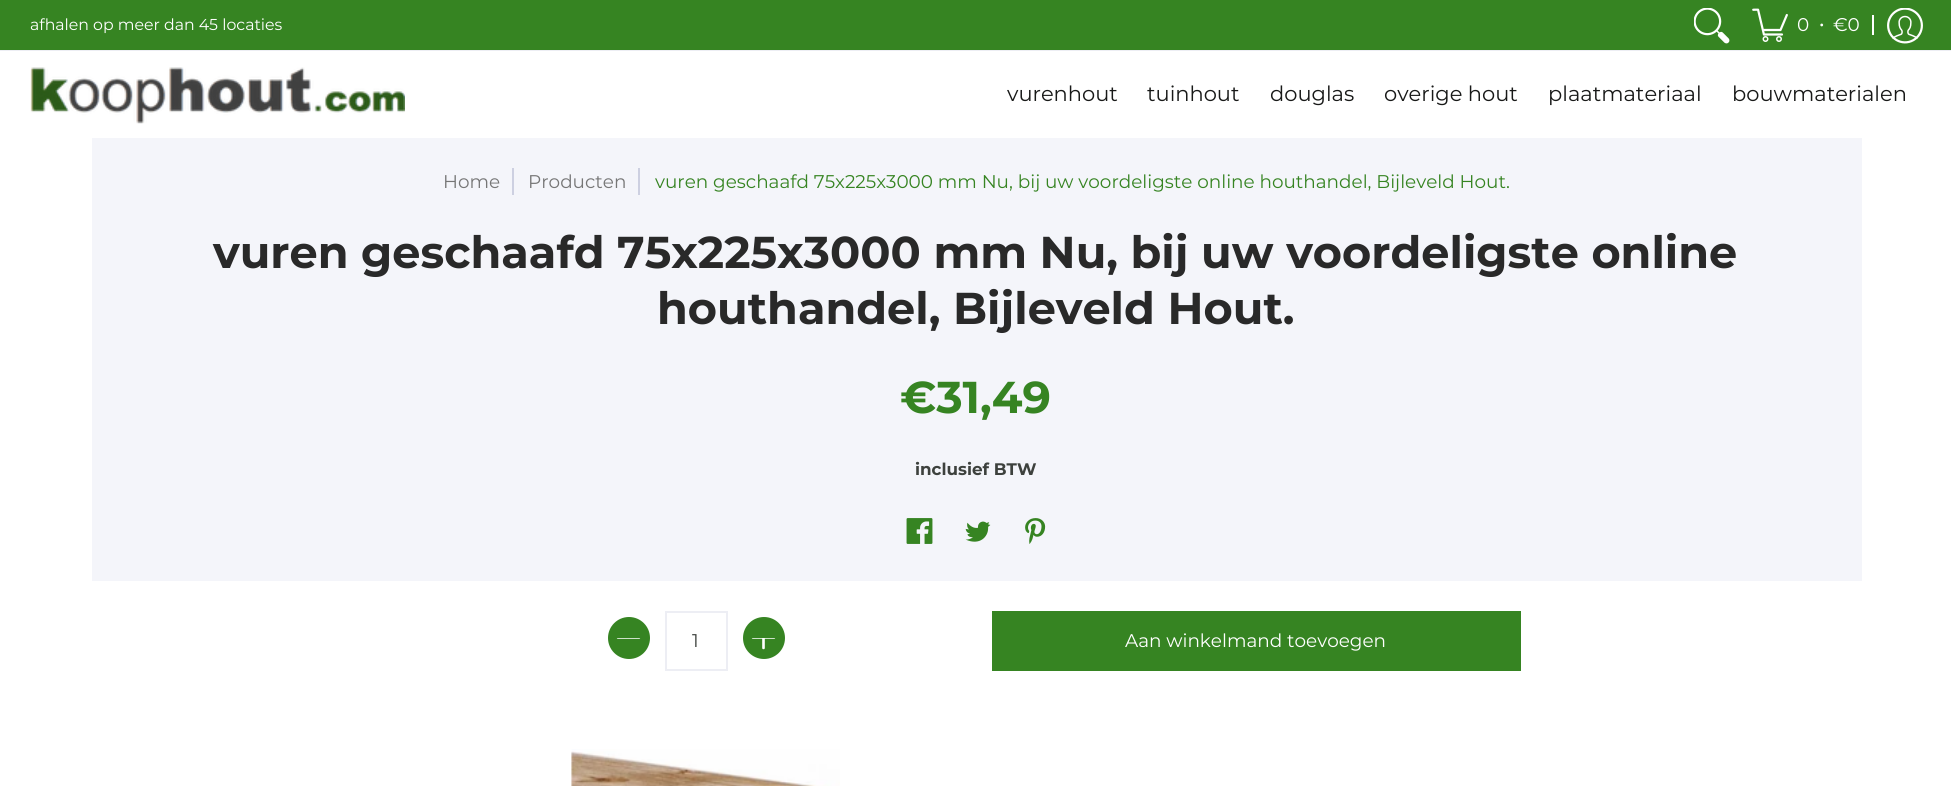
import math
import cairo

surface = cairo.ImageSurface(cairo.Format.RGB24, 1951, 786)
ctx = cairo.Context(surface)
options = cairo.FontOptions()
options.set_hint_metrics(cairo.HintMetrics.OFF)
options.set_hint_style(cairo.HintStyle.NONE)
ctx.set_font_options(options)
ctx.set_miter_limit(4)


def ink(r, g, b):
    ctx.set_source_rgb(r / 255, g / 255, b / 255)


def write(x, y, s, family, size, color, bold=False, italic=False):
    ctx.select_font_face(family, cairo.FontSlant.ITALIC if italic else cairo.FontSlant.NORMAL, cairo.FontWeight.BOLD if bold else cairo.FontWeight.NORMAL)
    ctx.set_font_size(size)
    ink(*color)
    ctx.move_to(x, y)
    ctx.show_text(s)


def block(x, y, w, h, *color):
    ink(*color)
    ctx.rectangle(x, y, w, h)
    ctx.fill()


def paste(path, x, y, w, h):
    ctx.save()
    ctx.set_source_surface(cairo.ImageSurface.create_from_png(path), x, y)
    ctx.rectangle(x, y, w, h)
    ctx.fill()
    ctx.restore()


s1 = dict(family="Montserrat", size=15.75, color=(255, 255, 255))
s2 = dict(family="Montserrat", size=18.4, color=(255, 255, 255))
s3 = dict(family="Montserrat", size=21, color=(24, 25, 24))
s4 = dict(family="Montserrat", size=18.4, color=(118, 118, 118))
s5 = dict(family="Montserrat", size=18.4, color=(54, 132, 34))
s6 = dict(family="Montserrat", size=44.6, color=(41, 41, 41), bold=True)
s7 = dict(family="Montserrat", size=44.6, color=(54, 132, 34), bold=True)
s8 = dict(family="Montserrat", size=16.75, color=(61, 65, 61), bold=True)
s9 = dict(family="Montserrat", size=18.4, color=(61, 65, 61))

ink(255, 255, 255)
ctx.paint()
block(0, 0, 1951, 50, 54, 132, 34)
block(0, 50, 1951, 1, 237, 238, 244)
write(30, 30, "afhalen op meer dan 45 locaties", **s1)
paste("pic1.png", 1694, 8, 36, 36)
paste("pic2.png", 1752, 8, 36, 34)
write(1797, 31, "0", **s2)
write(1819, 30, "•", **s2)
write(1833, 31, "€0", **s2)
block(1872, 15, 2, 20, 255, 255, 255)
paste("pic3.png", 1887, 8, 36, 36)
paste("pic4.png", 30, 67, 375, 57)
write(1007, 101, "vurenhout", **s3)
write(1147, 101, "tuinhout", **s3)
write(1270, 101, "douglas", **s3)
write(1384, 101, "overige hout", **s3)
write(1548, 101, "plaatmateriaal", **s3)
write(1732, 101, "bouwmaterialen", **s3)
block(92, 138, 1770, 443, 244, 245, 250)
write(443, 188, "Home", **s4)
block(512, 168, 2, 27, 205, 208, 225)
write(528, 188, "Producten", **s4)
block(638, 168, 2, 27, 205, 208, 225)
write(655, 188, "vuren geschaafd 75x225x3000 mm Nu, bij uw voordeligste online houthandel, Bijleveld Hout.", **s5)
write(213, 268, "vuren geschaafd 75x225x3000 mm Nu, bij uw voordeligste online", **s6)
write(657, 324, "houthandel, Bijleveld Hout.", **s6)
write(900, 413, "€31,49", **s7)
write(915, 475, "inclusief BTW", **s8)
paste("pic5.png", 906, 518, 27, 26)
paste("pic6.png", 965, 521, 26, 21)
paste("pic7.png", 1025, 518, 21, 26)
ink(54, 132, 34)
ctx.arc(629, 638, 21, 0, 2 * math.pi)
ctx.fill()
paste("pic8.png", 616, 638, 25, 1)
ctx.rectangle(666, 612, 61, 58)
ink(237, 238, 244)
ctx.stroke()
write(692, 647, "1", **s9)
ink(54, 132, 34)
ctx.new_path()
ctx.arc(764, 638, 21, 0, 2 * math.pi)
ctx.fill()
paste("pic9.png", 751, 638, 25, 12)
block(992, 611, 529, 60, 54, 132, 34)
write(1125, 647, "Aan winkelmand toevoegen", **s2)
paste("pic10.png", 571, 749, 269, 37)
surface.write_to_png("screenshot.png")
